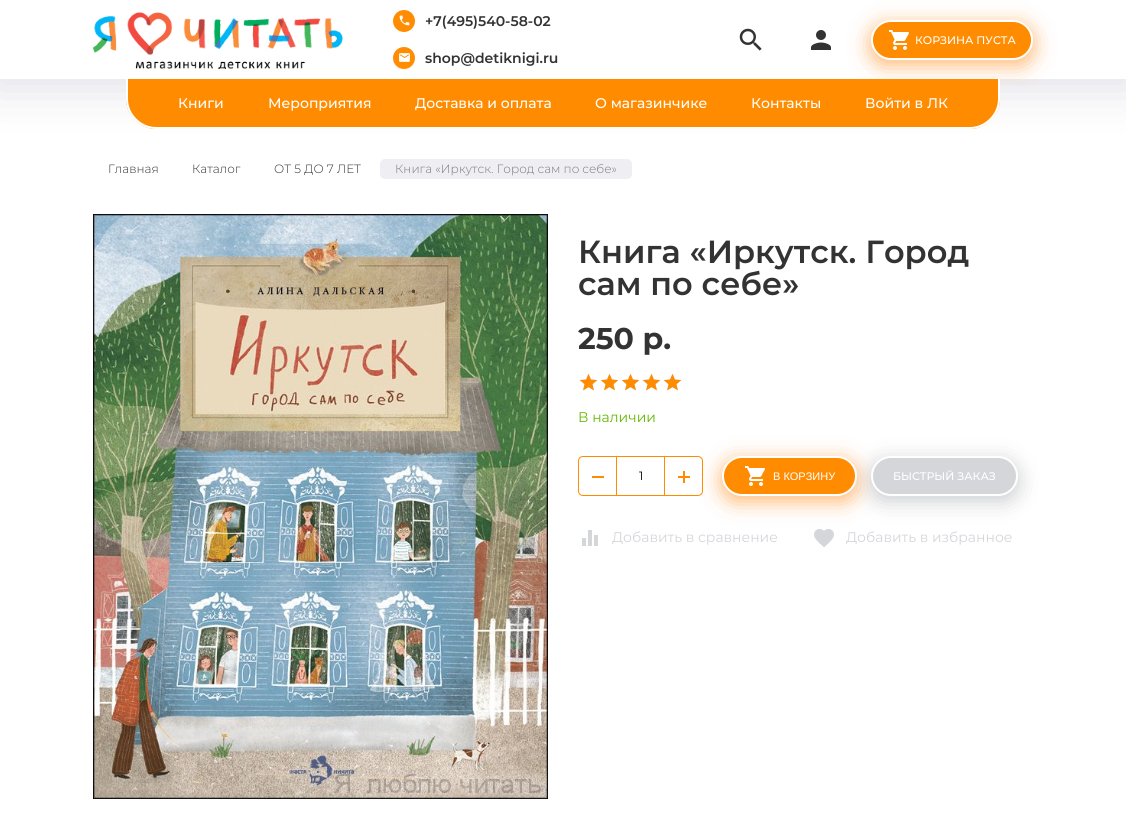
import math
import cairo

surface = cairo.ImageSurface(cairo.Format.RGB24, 1126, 821)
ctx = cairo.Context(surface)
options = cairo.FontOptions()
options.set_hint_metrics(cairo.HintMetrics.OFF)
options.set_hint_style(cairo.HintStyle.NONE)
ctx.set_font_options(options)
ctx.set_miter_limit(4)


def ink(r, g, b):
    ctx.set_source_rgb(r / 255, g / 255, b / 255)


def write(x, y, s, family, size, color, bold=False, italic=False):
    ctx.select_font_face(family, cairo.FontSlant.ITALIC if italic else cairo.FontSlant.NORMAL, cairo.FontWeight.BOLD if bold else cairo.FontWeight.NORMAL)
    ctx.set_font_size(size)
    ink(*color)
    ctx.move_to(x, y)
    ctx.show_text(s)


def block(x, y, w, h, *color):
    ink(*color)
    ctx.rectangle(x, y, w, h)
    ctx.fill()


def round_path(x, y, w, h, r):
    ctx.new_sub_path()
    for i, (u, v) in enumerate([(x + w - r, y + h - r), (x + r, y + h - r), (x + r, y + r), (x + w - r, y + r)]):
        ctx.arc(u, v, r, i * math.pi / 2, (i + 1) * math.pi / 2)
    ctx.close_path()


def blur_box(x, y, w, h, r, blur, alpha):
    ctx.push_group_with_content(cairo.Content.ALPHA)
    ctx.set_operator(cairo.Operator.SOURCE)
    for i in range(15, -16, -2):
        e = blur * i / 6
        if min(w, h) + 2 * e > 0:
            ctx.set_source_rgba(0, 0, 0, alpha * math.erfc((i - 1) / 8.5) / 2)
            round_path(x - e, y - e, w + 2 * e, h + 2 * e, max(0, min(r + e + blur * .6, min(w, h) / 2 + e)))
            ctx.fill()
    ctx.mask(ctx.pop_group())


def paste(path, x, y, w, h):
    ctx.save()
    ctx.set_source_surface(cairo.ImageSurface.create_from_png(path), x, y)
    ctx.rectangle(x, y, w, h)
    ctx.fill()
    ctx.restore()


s1 = dict(family="Montserrat SemiBold", size=14, color=(51, 51, 51))
s2 = dict(family="Montserrat Medium", size=11, color=(255, 255, 255))
s3 = dict(family="Montserrat Medium", size=14, color=(255, 255, 255))
s4 = dict(family="Montserrat Light", size=12, color=(51, 51, 51))
s5 = dict(family="Montserrat Light", size=12, color=(123, 122, 127))
s6 = dict(family="Montserrat SemiBold", size=32, color=(51, 51, 51))
s7 = dict(family="Montserrat", size=30, color=(51, 51, 51), bold=True)
s8 = dict(family="Montserrat", size=14, color=(100, 183, 2))
s9 = dict(family="Montserrat", size=12, color=(0, 0, 0))
s10 = dict(family="Liberation Sans", size=11, color=(255, 255, 255))
s11 = dict(family="Montserrat", size=14, color=(212, 214, 218))

ink(255, 255, 255)
ctx.paint()
ctx.save()
ctx.rectangle(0, 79, 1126, 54)
ctx.clip()
ink(215, 213, 224)
blur_box(-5, 0, 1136, 89, 0, 23, 0.73)
ctx.restore()
paste("pic1.png", 93, 12, 250, 57)
ink(255, 140, 1)
ctx.arc(404, 21, 11, 0, 2 * math.pi)
ctx.fill()
paste("pic2.png", 399, 15, 11, 11)
write(425, 26, "+7(495)540-58-02", **s1)
ink(255, 140, 1)
ctx.new_path()
ctx.arc(404, 58, 11, 0, 2 * math.pi)
ctx.fill()
paste("pic3.png", 399, 53, 11, 9)
write(425, 63, "shop@detiknigi.ru", **s1)
paste("pic4.png", 739, 28, 23, 23)
paste("pic5.png", 811, 30, 20, 20)
ink(255, 124, 0)
blur_box(871, 25, 162, 40, 20, 10.5, 0.56)
ink(255, 140, 0)
round_path(872, 21, 160, 38, 19)
ctx.fill_preserve()
ink(255, 255, 255)
ctx.stroke()
paste("pic6.png", 889, 30, 20, 20)
write(915, 44, "КОРЗИНА ПУСТА", **s2)
ink(255, 140, 0)
ctx.new_path()
ctx.move_to(126, 79)
ctx.line_to(1000, 79)
ctx.line_to(1000, 99)
ctx.curve_to(1000, 115.5, 986.5, 129, 970, 129)
ctx.line_to(156, 129)
ctx.curve_to(139.5, 129, 126, 115.5, 126, 99)
ctx.close_path()
ctx.fill()
ink(255, 255, 255)
ctx.set_fill_rule(cairo.FillRule.EVEN_ODD)
ctx.new_path()
ctx.move_to(126, 79)
ctx.line_to(1000, 79)
ctx.line_to(1000, 99)
ctx.curve_to(1000, 116, 987, 129, 970, 129)
ctx.line_to(156, 129)
ctx.curve_to(139, 129, 126, 116, 126, 99)
ctx.close_path()
ctx.move_to(128, 79)
ctx.line_to(998, 79)
ctx.line_to(998, 99)
ctx.curve_to(998, 114, 985, 127, 970, 127)
ctx.line_to(156, 127)
ctx.curve_to(141, 127, 128, 114, 128, 99)
ctx.close_path()
ctx.fill()
write(178, 108, "Книги", **s3)
write(268, 108, "Мероприятия", **s3)
write(415, 108, "Доставка и оплата", **s3)
write(595, 108, "О магазинчике", **s3)
write(751, 108, "Контакты", **s3)
write(865, 108, "Войти в ЛК", **s3)
write(108, 173, "Главная", **s4)
write(192, 173, "Каталог", **s4)
write(274, 173, "ОТ 5 ДО 7 ЛЕТ", **s4)
ink(239, 238, 242)
round_path(380, 159, 252, 20, 5)
ctx.fill()
write(395, 173, "Книга «Иркутск. Город сам по себе»", **s5)
paste("pic7.png", 93, 214, 455, 585)
write(578, 263, "Книга «Иркутск. Город", **s6)
write(578, 295, "сам по себе»", **s6)
write(578, 349, "250 р.", **s7)
paste("pic9.png", 580, 374, 101, 17)
paste("pic8.png", 579, 373, 103, 18)
write(578, 422, "В наличии", **s8)
round_path(578.5, 456.5, 124, 39, 4.5)
ink(255, 140, 0)
ctx.set_line_width(1)
ctx.stroke()
block(616, 457, 1, 38, 255, 140, 0)
block(592, 476, 12, 2, 255, 140, 0)
write(639, 480, "1", **s9)
block(664, 457, 1, 38, 255, 140, 0)
block(683, 471, 2, 12, 255, 140, 0)
block(678, 476, 12, 2, 255, 140, 0)
paste("pic11.png", 814, 529, 20, 18)
ink(255, 124, 0)
blur_box(722, 461, 135, 40, 20, 10.5, 0.56)
ink(255, 140, 0)
round_path(723, 457, 133, 38, 19)
ctx.fill_preserve()
ink(255, 255, 255)
ctx.set_line_width(2)
ctx.stroke()
paste("pic6.png", 745, 466, 20, 20)
write(773, 480, "В КОРЗИНУ", **s10)
ink(160, 166, 169)
blur_box(871, 461, 147, 40, 20, 10.5, 0.56)
ink(212, 214, 218)
round_path(872, 457, 145, 38, 19)
ctx.fill_preserve()
ink(255, 255, 255)
ctx.stroke()
write(893, 480, "БЫСТРЫЙ ЗАКАЗ", **s2)
paste("pic10.png", 582, 530, 16, 16)
write(612, 542, "Добавить в сравнение", **s11)
write(846, 542, "Добавить в избранное", **s11)
surface.write_to_png("screenshot.png")
